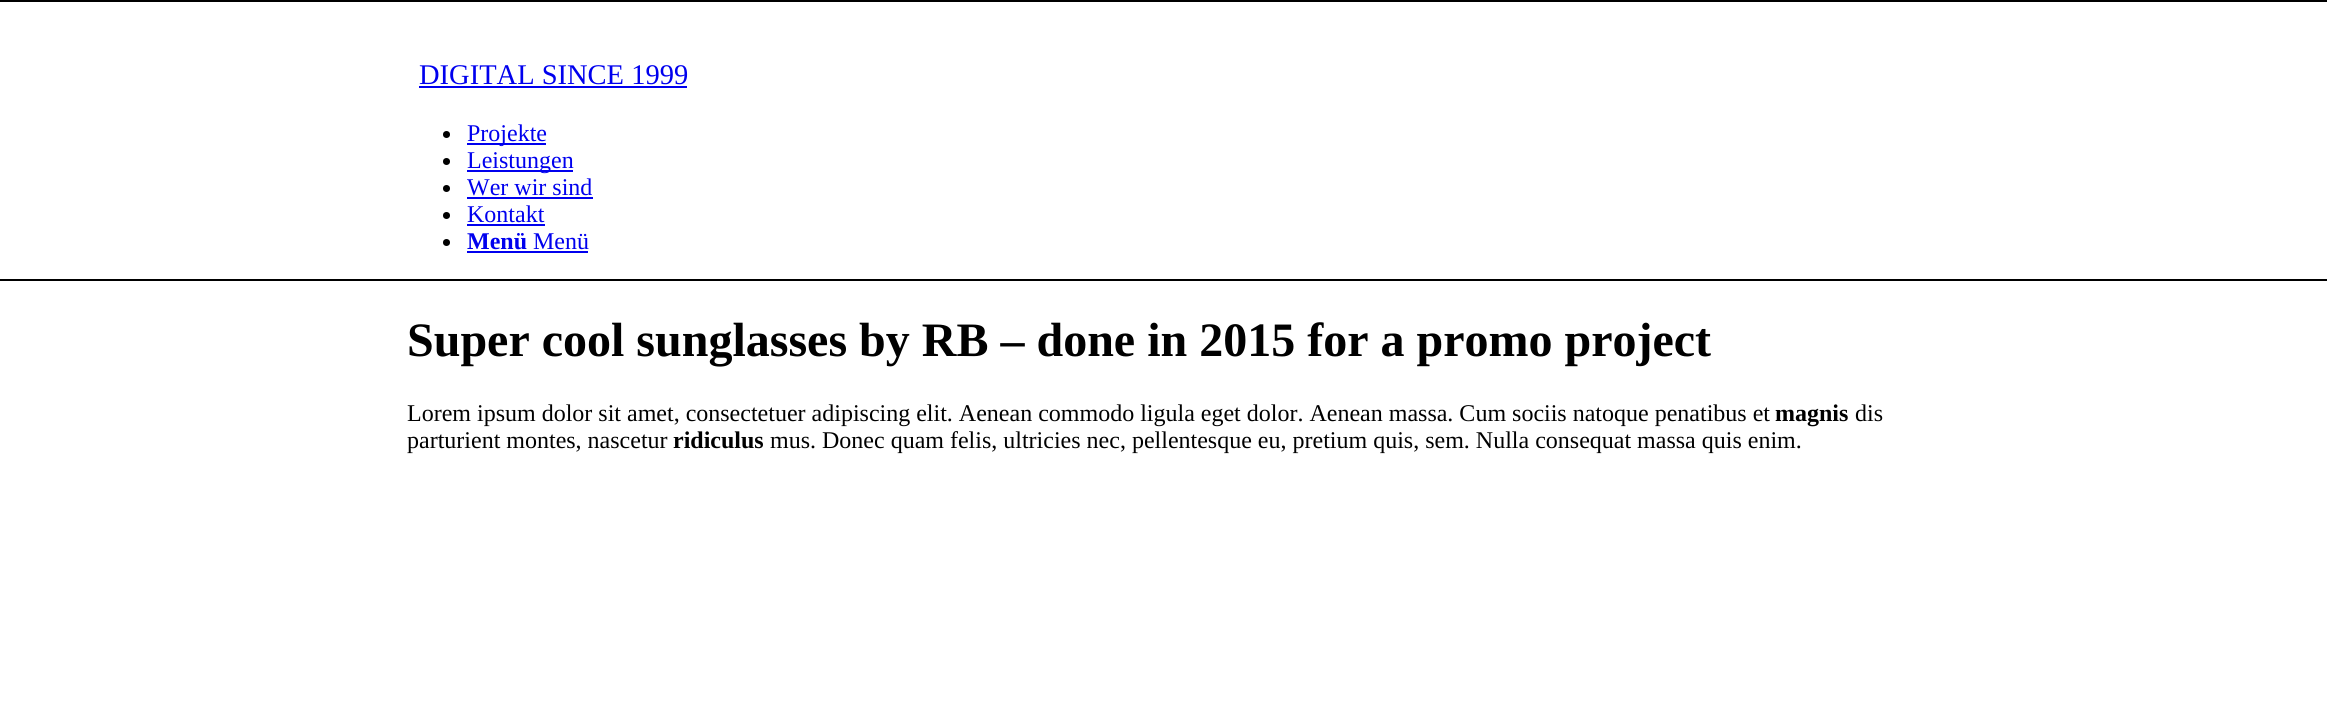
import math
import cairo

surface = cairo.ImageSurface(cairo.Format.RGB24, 2327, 726)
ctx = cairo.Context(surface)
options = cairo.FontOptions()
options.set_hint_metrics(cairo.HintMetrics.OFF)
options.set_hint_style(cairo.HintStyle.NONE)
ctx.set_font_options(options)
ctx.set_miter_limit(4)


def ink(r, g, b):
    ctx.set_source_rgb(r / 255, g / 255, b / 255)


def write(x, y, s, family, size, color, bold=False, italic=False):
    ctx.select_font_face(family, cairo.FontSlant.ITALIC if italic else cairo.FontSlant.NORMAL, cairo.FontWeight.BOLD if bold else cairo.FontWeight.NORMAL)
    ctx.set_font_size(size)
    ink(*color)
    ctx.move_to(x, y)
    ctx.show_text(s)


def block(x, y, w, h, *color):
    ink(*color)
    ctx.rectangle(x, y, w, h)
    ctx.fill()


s1 = dict(family="Liberation Serif", size=28.5, color=(0, 0, 238))
s2 = dict(family="Liberation Serif", size=24, color=(0, 0, 238))
s3 = dict(family="Liberation Serif", size=24, color=(0, 0, 238), bold=True)
s4 = dict(family="Liberation Serif", size=48, color=(0, 0, 0), bold=True)
s5 = dict(family="Liberation Serif", size=24, color=(0, 0, 0))
s6 = dict(family="Liberation Serif", size=24, color=(0, 0, 0), bold=True)

ink(255, 255, 255)
ctx.paint()
block(0, 0, 2327, 2, 0, 0, 0)
write(419, 84, "DIGITAL SINCE 1999", **s1)
block(419, 86, 268, 2, 0, 0, 238)
ink(0, 0, 0)
ctx.new_path()
ctx.arc(446.5, 134.5, 3.5, 0, 2 * math.pi)
ctx.fill()
block(467, 143, 79, 2, 0, 0, 238)
write(467, 141, "Projekte", **s2)
ink(0, 0, 0)
ctx.new_path()
ctx.arc(446.5, 161.5, 3.5, 0, 2 * math.pi)
ctx.fill()
block(467, 170, 106, 2, 0, 0, 238)
write(467, 168, "Leistungen", **s2)
ink(0, 0, 0)
ctx.new_path()
ctx.arc(446.5, 188.5, 3.5, 0, 2 * math.pi)
ctx.fill()
write(467, 195, "Wer wir sind", **s2)
block(467, 197, 126, 2, 0, 0, 238)
ink(0, 0, 0)
ctx.new_path()
ctx.arc(446.5, 215.5, 3.5, 0, 2 * math.pi)
ctx.fill()
write(467, 222, "Kontakt", **s2)
block(467, 224, 78, 2, 0, 0, 238)
ink(0, 0, 0)
ctx.new_path()
ctx.arc(446.5, 242.5, 3.5, 0, 2 * math.pi)
ctx.fill()
write(467, 249, "Menü", **s3)
write(533, 249, "Menü", **s2)
block(467, 251, 121, 2, 0, 0, 238)
block(0, 279, 2327, 2, 0, 0, 0)
write(407, 356, "Super cool sunglasses by RB – done in 2015 for a promo project", **s4)
write(407, 421, "Lorem ipsum dolor sit amet, consectetuer adipiscing elit. Aenean commodo ligula eget dolor. Aenean massa. Cum sociis natoque penatibus et", **s5)
write(1775, 421, "magnis", **s6)
write(1855, 421, "dis", **s5)
write(407, 448, "parturient montes, nascetur", **s5)
write(673, 448, "ridiculus", **s6)
write(770, 448, "mus. Donec quam felis, ultricies nec, pellentesque eu, pretium quis, sem. Nulla consequat massa quis enim.", **s5)
surface.write_to_png("screenshot.png")
